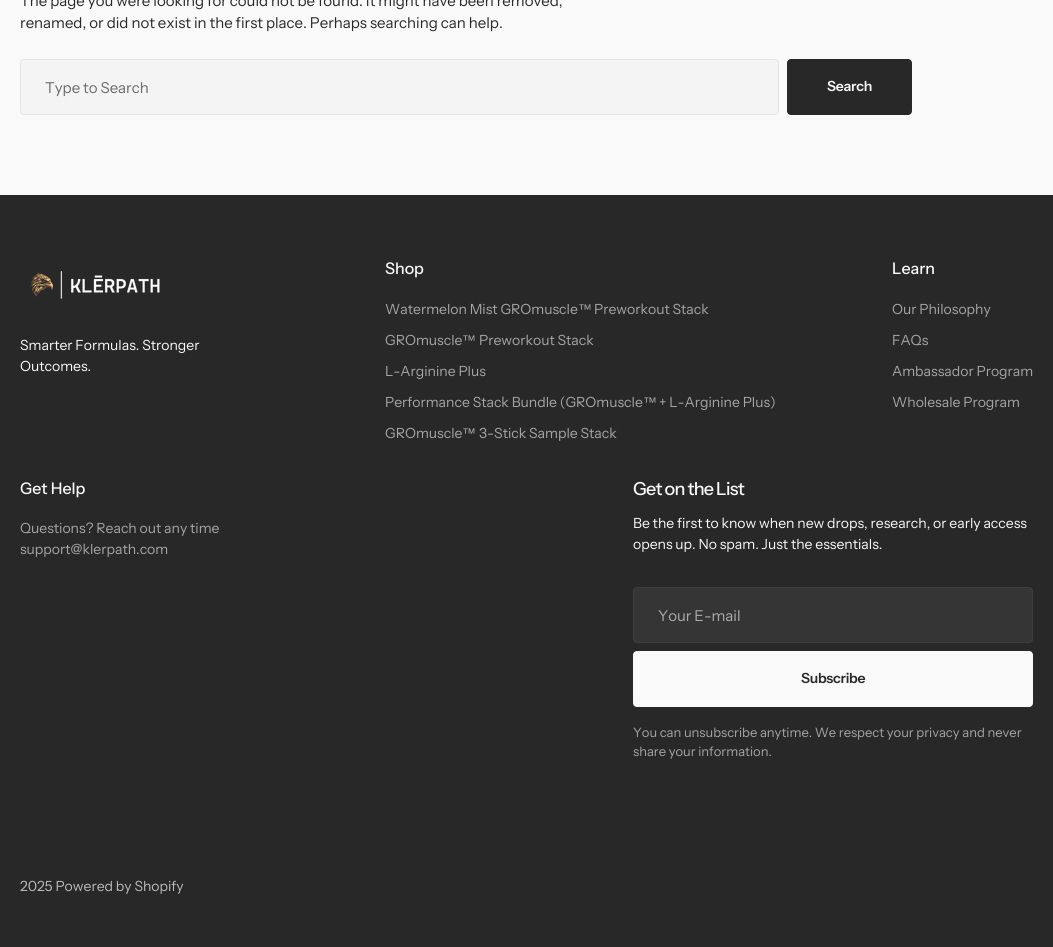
import math
import cairo

surface = cairo.ImageSurface(cairo.Format.RGB24, 1053, 947)
ctx = cairo.Context(surface)
options = cairo.FontOptions()
options.set_hint_metrics(cairo.HintMetrics.OFF)
options.set_hint_style(cairo.HintStyle.NONE)
ctx.set_font_options(options)
ctx.set_miter_limit(4)


def ink(r, g, b):
    ctx.set_source_rgb(r / 255, g / 255, b / 255)


def write(x, y, s, family, size, color, bold=False, italic=False):
    ctx.select_font_face(family, cairo.FontSlant.ITALIC if italic else cairo.FontSlant.NORMAL, cairo.FontWeight.BOLD if bold else cairo.FontWeight.NORMAL)
    ctx.set_font_size(size)
    ink(*color)
    ctx.move_to(x, y)
    ctx.show_text(s)


def write_spaced(x, y, s, letter, word):
    ctx.move_to(x, y)
    for ch in s:
        ctx.show_text(ch)
        ctx.rel_move_to(letter + word * (ch == ' '), 0)


def block(x, y, w, h, *color):
    ink(*color)
    ctx.rectangle(x, y, w, h)
    ctx.fill()


def round_path(x, y, w, h, r):
    ctx.new_sub_path()
    for i, (u, v) in enumerate([(x + w - r, y + h - r), (x + r, y + h - r), (x + r, y + r), (x + w - r, y + r)]):
        ctx.arc(u, v, r, i * math.pi / 2, (i + 1) * math.pi / 2)
    ctx.close_path()


def paste(path, x, y, w, h):
    ctx.save()
    ctx.set_source_surface(cairo.ImageSurface.create_from_png(path), x, y)
    ctx.rectangle(x, y, w, h)
    ctx.fill()
    ctx.restore()


s1 = dict(family="Instrument Sans", size=15, color=(40, 40, 40))
s2 = dict(family="Instrument Sans", size=15, color=(105, 105, 105))
s3 = dict(family="Instrument Sans", size=14, color=(249, 249, 249))
s4 = dict(family="Instrument Sans Medium", size=16, color=(249, 249, 249))
s5 = dict(family="Instrument Sans", size=14, color=(165, 165, 165))
s6 = dict(family="Liberation Sans", size=14, color=(165, 165, 165))
s7 = dict(family="Instrument Sans", size=15, color=(171, 171, 171))
s8 = dict(family="Instrument Sans", size=13, color=(165, 165, 165))
s9 = dict(family="Instrument Sans", size=14, color=(186, 186, 186))

ink(249, 249, 249)
ctx.paint()
write(20, 6, "The page you were looking for could not be found. It might have been removed,", **s1)
write(20, 28, "renamed, or did not exist in the first place. Perhaps searching can help.", **s1)
ink(244, 244, 244)
round_path(20.5, 59.5, 758, 55, 3.5)
ctx.fill_preserve()
ink(229, 229, 229)
ctx.set_line_width(1)
ctx.stroke()
write(45, 93, "Type to Search", **s2)
ink(40, 40, 40)
round_path(787, 59, 125, 56, 4)
ctx.fill()
ctx.select_font_face("Instrument Sans SemiBold")
ctx.set_font_size(14)
ink(249, 249, 249)
write_spaced(827, 91, "Search", -0.25, 0)
block(0, 195, 1053, 752, 40, 40, 40)
paste("pic1.png", 30, 271, 130, 28)
write(20, 350, "Smarter Formulas. Stronger", **s3)
write(20, 371, "Outcomes.", **s3)
write(385, 274, "Shop", **s4)
write(385, 314, "Watermelon Mist GROmuscle", **s5)
write(578, 314, "™", **s6)
write(594, 314, "Preworkout Stack", **s5)
write(385, 345, "GROmuscle", **s5)
write(462, 345, "™", **s6)
write(479, 345, "Preworkout Stack", **s5)
write(385, 376, "L-Arginine Plus", **s5)
write(385, 407, "Performance Stack Bundle (GROmuscle", **s5)
write(643, 407, "™", **s6)
write(659, 407, "+ L-Arginine Plus)", **s5)
write(385, 438, "GROmuscle", **s5)
write(462, 438, "™", **s6)
write(479, 438, "3-Stick Sample Stack", **s5)
write(892, 274, "Learn", **s4)
write(892, 314, "Our Philosophy", **s5)
write(892, 345, "FAQs", **s5)
write(892, 376, "Ambassador Program", **s5)
write(892, 407, "Wholesale Program", **s5)
write(20, 494, "Get Help", **s4)
write(20, 533, "Questions? Reach out any time", **s5)
write(20, 554, "support@klerpath.com", **s5)
ctx.select_font_face("Instrument Sans Medium")
ctx.set_font_size(18)
ink(249, 249, 249)
write_spaced(633, 495, "Get on the List", -0.75, 0)
write(633, 528, "Be the first to know when new drops, research, or early access", **s3)
write(633, 549, "opens up. No spam. Just the essentials.", **s3)
ink(53, 53, 53)
round_path(633.5, 587.5, 399, 55, 3.5)
ctx.fill_preserve()
ink(62, 62, 62)
ctx.stroke()
write(658, 621, "Your E-mail", **s7)
ink(249, 249, 249)
round_path(633, 651, 400, 56, 4)
ctx.fill()
ctx.select_font_face("Instrument Sans SemiBold")
ctx.set_font_size(14)
ink(40, 40, 40)
write_spaced(801, 683, "Subscribe", -0.25, 0)
write(633, 737, "You can unsubscribe anytime. We respect your privacy and never", **s8)
write(633, 756, "share your information.", **s8)
write(20, 891, "2025 Powered by Shopify", **s9)
surface.write_to_png("screenshot.png")
